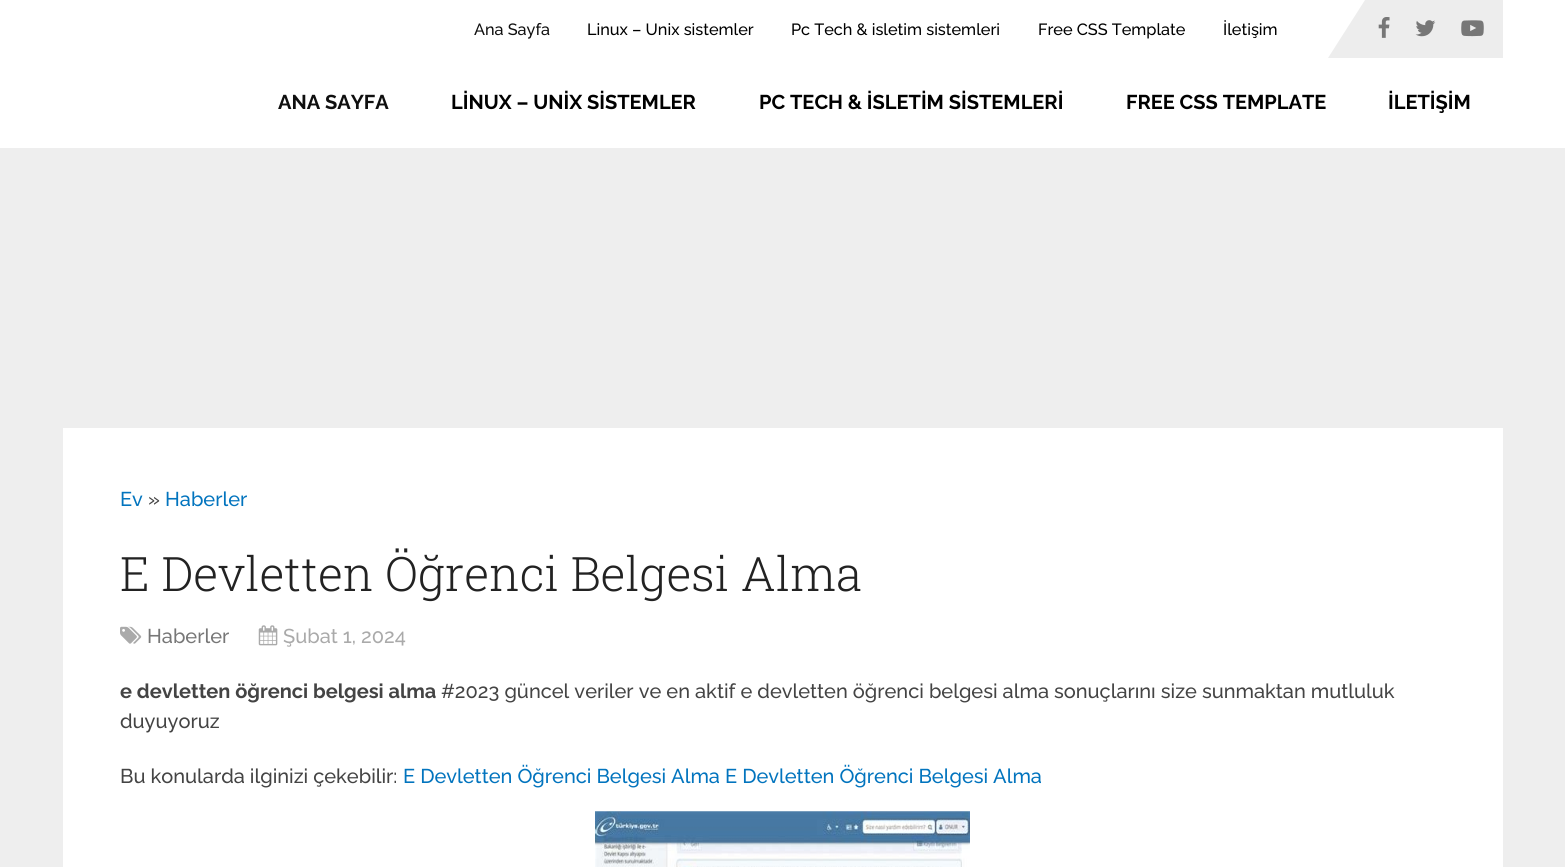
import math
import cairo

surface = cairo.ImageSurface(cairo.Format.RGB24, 1565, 867)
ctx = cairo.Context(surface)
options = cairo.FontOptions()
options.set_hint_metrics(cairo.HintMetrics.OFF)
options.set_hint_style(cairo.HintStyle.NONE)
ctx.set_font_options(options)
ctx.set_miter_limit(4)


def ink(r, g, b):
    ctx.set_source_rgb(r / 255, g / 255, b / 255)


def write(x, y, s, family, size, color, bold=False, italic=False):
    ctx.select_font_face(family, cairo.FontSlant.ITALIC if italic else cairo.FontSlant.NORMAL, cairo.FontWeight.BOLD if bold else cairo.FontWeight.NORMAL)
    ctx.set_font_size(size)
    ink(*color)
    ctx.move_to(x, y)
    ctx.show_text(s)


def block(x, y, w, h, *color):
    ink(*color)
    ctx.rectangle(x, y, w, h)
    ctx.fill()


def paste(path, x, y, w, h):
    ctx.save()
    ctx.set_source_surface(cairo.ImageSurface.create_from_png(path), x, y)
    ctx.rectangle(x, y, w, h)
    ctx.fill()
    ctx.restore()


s1 = dict(family="Raleway Medium", size=16.25, color=(15, 15, 15))
s2 = dict(family="Raleway Medium", size=16.25, color=(0, 0, 0))
s3 = dict(family="Raleway", size=20, color=(15, 15, 15), bold=True)
s4 = dict(family="Raleway", size=20, color=(0, 0, 0), bold=True)
s5 = dict(family="Raleway Medium", size=20, color=(2, 116, 190))
s6 = dict(family="Raleway Medium", size=20, color=(68, 68, 68))
s7 = dict(family="Roboto Slab Light", size=47.5, color=(34, 34, 34))
s8 = dict(family="Raleway Medium", size=20, color=(119, 119, 119))
s9 = dict(family="Raleway Medium", size=20, color=(170, 170, 170))
s10 = dict(family="Raleway", size=20, color=(68, 68, 68), bold=True)

ink(238, 238, 238)
ctx.paint()
block(0, 0, 1565, 148, 255, 255, 255)
write(474, 35, "Ana Sayfa", **s1)
write(587, 35, "Linux – Unix sistemler", **s2)
write(791, 35, "Pc Tech & isletim sistemleri", **s2)
write(1038, 35, "Free CSS Template", **s2)
write(1223, 35, "İletişim", **s2)
block(1365, 0, 138, 58, 237, 237, 237)
ctx.new_path()
ctx.move_to(1365, 0)
ctx.line_to(1365, 58)
ctx.line_to(1328, 58)
ctx.close_path()
ctx.fill()
paste("pic1.png", 1378, 17, 12, 21)
paste("pic2.png", 1415, 20, 21, 17)
paste("pic3.png", 1461, 20, 23, 17)
write(278, 109, "ANA SAYFA", **s3)
write(451, 109, "LİNUX – UNİX SİSTEMLER", **s4)
write(759, 109, "PC TECH & İSLETİM SİSTEMLERİ", **s4)
write(1126, 109, "FREE CSS TEMPLATE", **s4)
write(1388, 109, "İLETİŞİM", **s4)
block(63, 428, 1440, 439, 255, 255, 255)
write(120, 506, "Ev", **s5)
write(148, 506, "»", **s6)
write(165, 506, "Haberler", **s5)
write(120, 591, "E Devletten Öğrenci Belgesi Alma", **s7)
paste("pic4.png", 120, 626, 22, 18)
write(147, 643, "Haberler", **s8)
paste("pic5.png", 258, 625, 20, 21)
write(283, 643, "Şubat 1, 2024", **s9)
write(120, 698, "e devletten öğrenci belgesi alma", **s10)
write(441, 698, "#2023 güncel veriler ve en aktif e devletten öğrenci belgesi alma sonuçlarını size sunmaktan mutluluk", **s6)
write(120, 728, "duyuyoruz", **s6)
write(120, 783, "Bu konularda ilginizi çekebilir:", **s6)
write(403, 783, "E Devletten Öğrenci Belgesi Alma E Devletten Öğrenci Belgesi Alma", **s5)
paste("pic6.png", 595, 811, 375, 56)
surface.write_to_png("screenshot.png")
